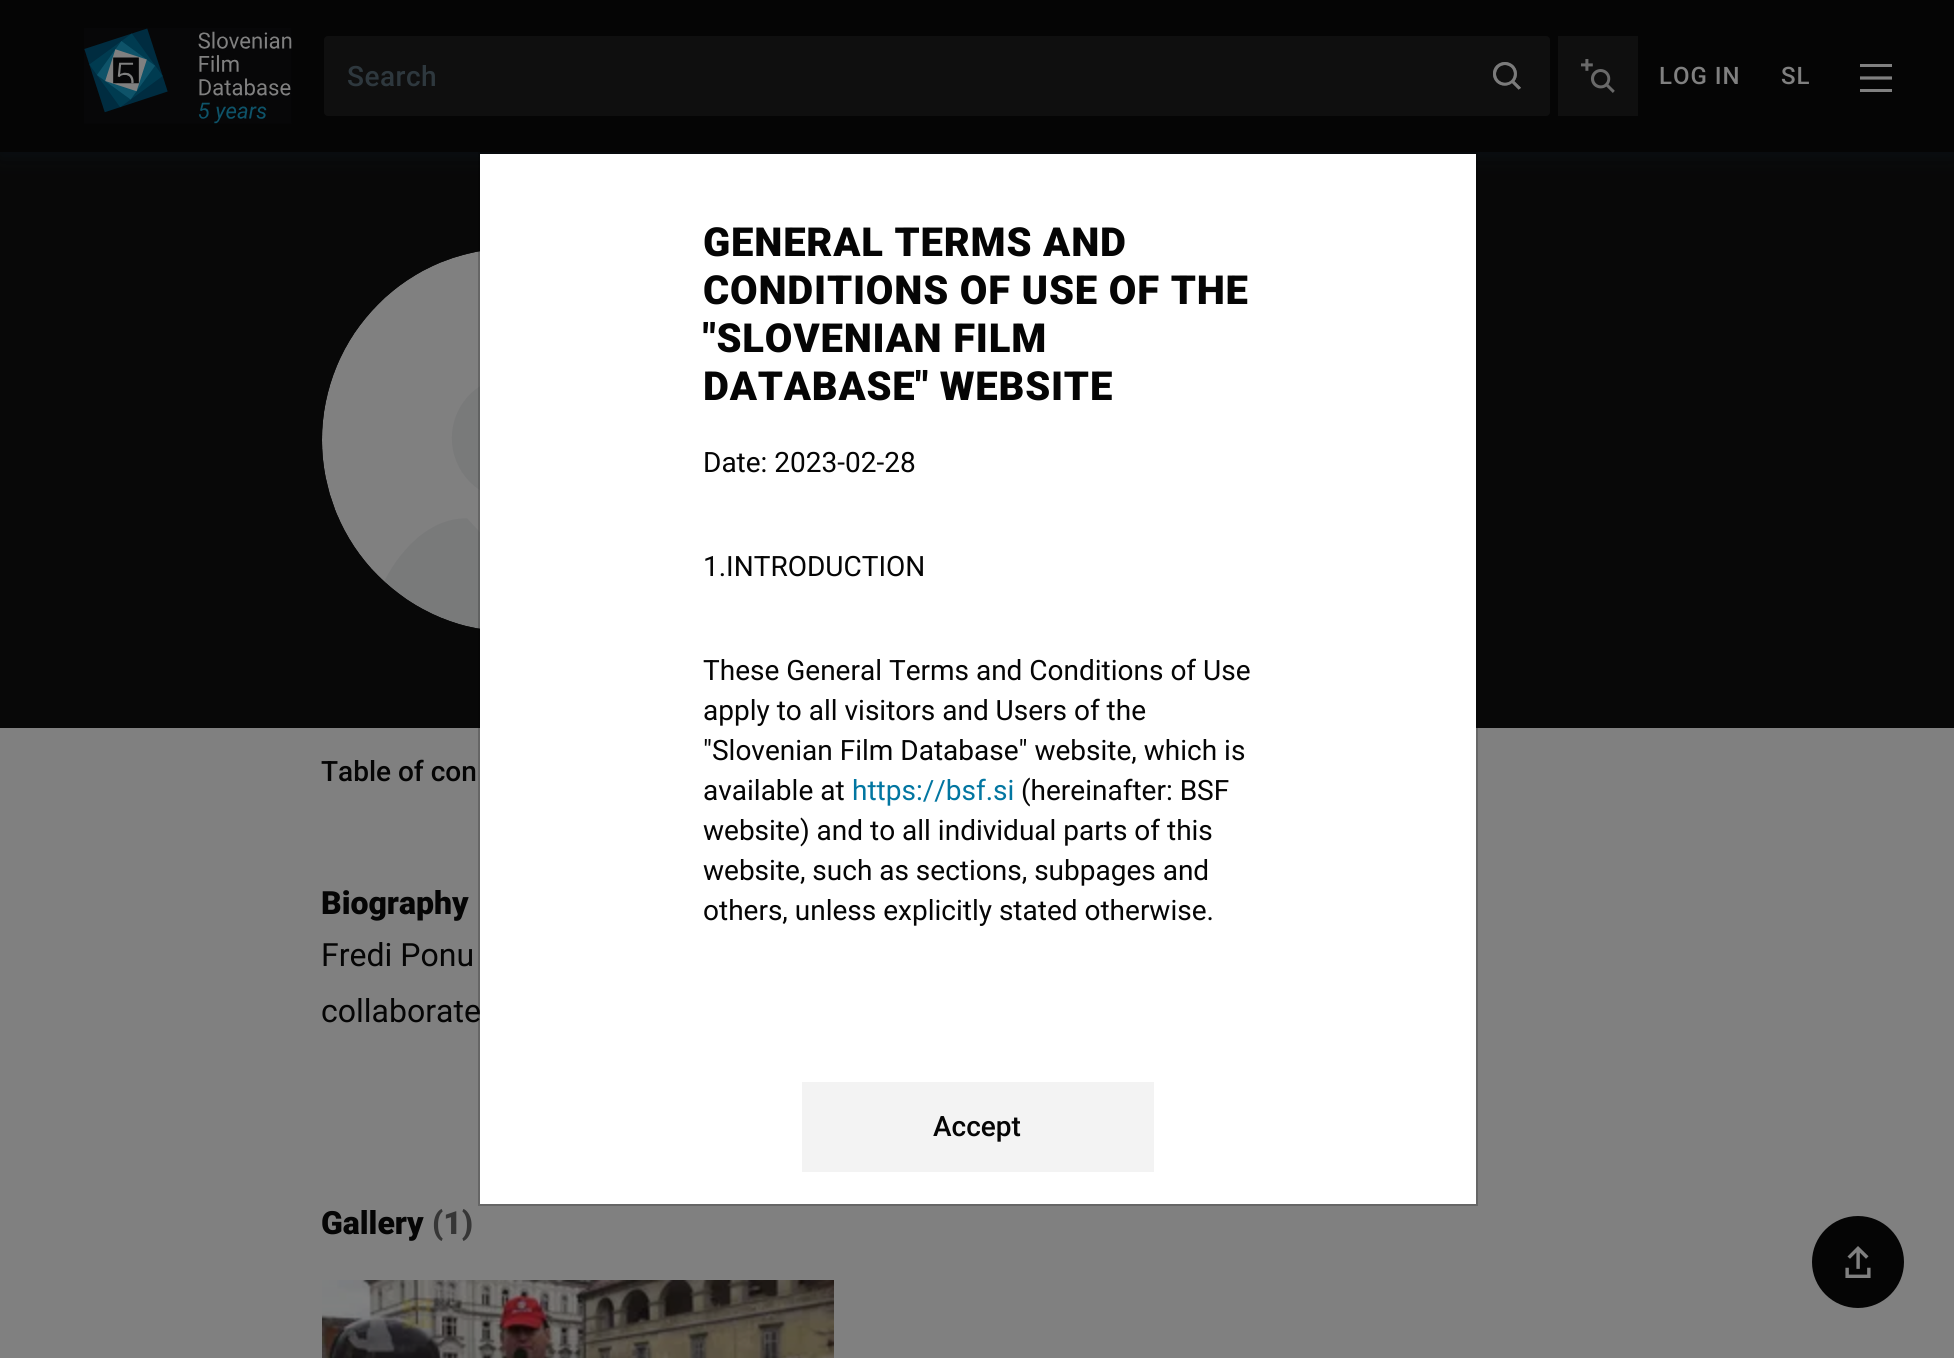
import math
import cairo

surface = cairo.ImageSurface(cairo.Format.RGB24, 1954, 1358)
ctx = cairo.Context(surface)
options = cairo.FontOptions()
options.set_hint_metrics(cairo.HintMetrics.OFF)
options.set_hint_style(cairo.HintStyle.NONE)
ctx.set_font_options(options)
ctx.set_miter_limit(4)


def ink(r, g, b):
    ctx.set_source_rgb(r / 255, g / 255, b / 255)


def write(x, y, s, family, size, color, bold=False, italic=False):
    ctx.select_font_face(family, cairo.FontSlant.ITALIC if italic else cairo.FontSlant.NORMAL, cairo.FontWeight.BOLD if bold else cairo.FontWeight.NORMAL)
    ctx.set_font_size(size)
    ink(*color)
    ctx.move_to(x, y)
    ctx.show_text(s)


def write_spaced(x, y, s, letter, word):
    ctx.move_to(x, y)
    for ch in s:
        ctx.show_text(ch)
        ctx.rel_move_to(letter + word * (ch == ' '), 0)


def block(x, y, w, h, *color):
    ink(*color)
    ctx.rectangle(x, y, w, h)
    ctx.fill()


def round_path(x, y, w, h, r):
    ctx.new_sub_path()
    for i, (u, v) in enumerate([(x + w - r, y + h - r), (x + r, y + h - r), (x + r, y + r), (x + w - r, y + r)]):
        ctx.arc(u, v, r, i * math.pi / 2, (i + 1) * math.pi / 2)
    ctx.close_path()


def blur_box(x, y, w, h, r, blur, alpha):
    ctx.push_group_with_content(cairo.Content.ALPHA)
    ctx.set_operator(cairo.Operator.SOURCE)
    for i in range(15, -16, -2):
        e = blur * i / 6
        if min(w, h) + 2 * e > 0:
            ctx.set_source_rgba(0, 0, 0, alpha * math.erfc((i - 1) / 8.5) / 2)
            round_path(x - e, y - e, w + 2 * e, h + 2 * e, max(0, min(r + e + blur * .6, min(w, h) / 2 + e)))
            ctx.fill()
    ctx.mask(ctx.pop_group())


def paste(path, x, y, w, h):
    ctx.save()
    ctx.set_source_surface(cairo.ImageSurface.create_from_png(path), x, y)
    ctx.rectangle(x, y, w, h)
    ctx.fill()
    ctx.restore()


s1 = dict(family="Roboto Medium", size=28, color=(5, 5, 5))
s2 = dict(family="Roboto Black", size=32, color=(5, 5, 5))
s3 = dict(family="Roboto", size=32, color=(5, 5, 5))
s4 = dict(family="Roboto Black", size=32, color=(54, 54, 54))
s5 = dict(family="Roboto", size=28, color=(5, 5, 5))
s6 = dict(family="Roboto", size=28, color=(2, 118, 161))

ink(128, 128, 128)
ctx.paint()
block(0, 152, 1954, 576, 8, 8, 8)
ink(15, 30, 42)
blur_box(0, 4, 1954, 152, 0, 10, 0.33)
block(0, 0, 1954, 152, 5, 5, 5)
paste("pic1.png", 84, 28, 208, 96)
ink(15, 15, 15)
round_path(324, 36, 1226, 80, 4)
ctx.fill()
paste("pic2.png", 1493, 62, 28, 28)
paste("pic3.png", 1493, 62, 28, 28)
ctx.select_font_face("Roboto Medium")
ctx.set_font_size(28)
ink(46, 56, 62)
write_spaced(347, 86, "Search", 0.5, 0)
block(1558, 36, 80, 80, 15, 15, 15)
paste("pic4.png", 1581, 59, 34, 34)
ctx.set_font_size(24)
ink(128, 128, 128)
write_spaced(1659, 84, "LOG IN", 1, 0)
write_spaced(1781, 84, "SL", 1, 0)
paste("pic5.png", 1860, 64, 32, 28)
paste("pic6.png", 322, 251, 158, 378)
write(321, 781, "Table of con", **s1)
write(321, 914, "Biography", **s2)
write(321, 966, "Fredi Ponu", **s3)
write(321, 1022, "collaborate", **s3)
write(321, 1234, "Gallery", **s2)
write(432, 1234, "(1)", **s4)
paste("pic7.png", 322, 1280, 512, 78)
ink(5, 5, 5)
ctx.arc(1858, 1262, 47, 0, 2 * math.pi)
ctx.fill_preserve()
ink(128, 128, 128)
ctx.stroke()
paste("pic8.png", 1845, 1246, 26, 32)
block(480, 154, 996, 1050, 255, 255, 255)
ctx.rectangle(479, 153, 998, 1052)
ctx.set_source_rgba(0, 0, 0, 0.2)
ctx.stroke()
ctx.set_font_size(40)
ink(5, 5, 5)
write_spaced(703, 256, "GENERAL TERMS AND", 0.8, 0)
write_spaced(703, 304, "CONDITIONS OF USE OF THE", 0.8, 0)
write_spaced(703, 352, "\"SLOVENIAN FILM", 0.8, 0)
write_spaced(703, 400, "DATABASE\" WEBSITE", 0.8, 0)
write(703, 472, "Date: 2023-02-28", **s5)
write(703, 576, "1.INTRODUCTION", **s5)
write(703, 680, "These General Terms and Conditions of Use", **s5)
write(703, 720, "apply to all visitors and Users of the", **s5)
write(703, 760, "\"Slovenian Film Database\" website, which is", **s5)
write(703, 800, "available at", **s5)
write(852, 800, "https://bsf.si", **s6)
write(1021, 800, "(hereinafter: BSF", **s5)
write(703, 840, "website) and to all individual parts of this", **s5)
write(703, 880, "website, such as sections, subpages and", **s5)
write(703, 920, "others, unless explicitly stated otherwise.", **s5)
block(802, 1082, 352, 90, 243, 243, 243)
write(933, 1136, "Accept", **s1)
surface.write_to_png("screenshot.png")
